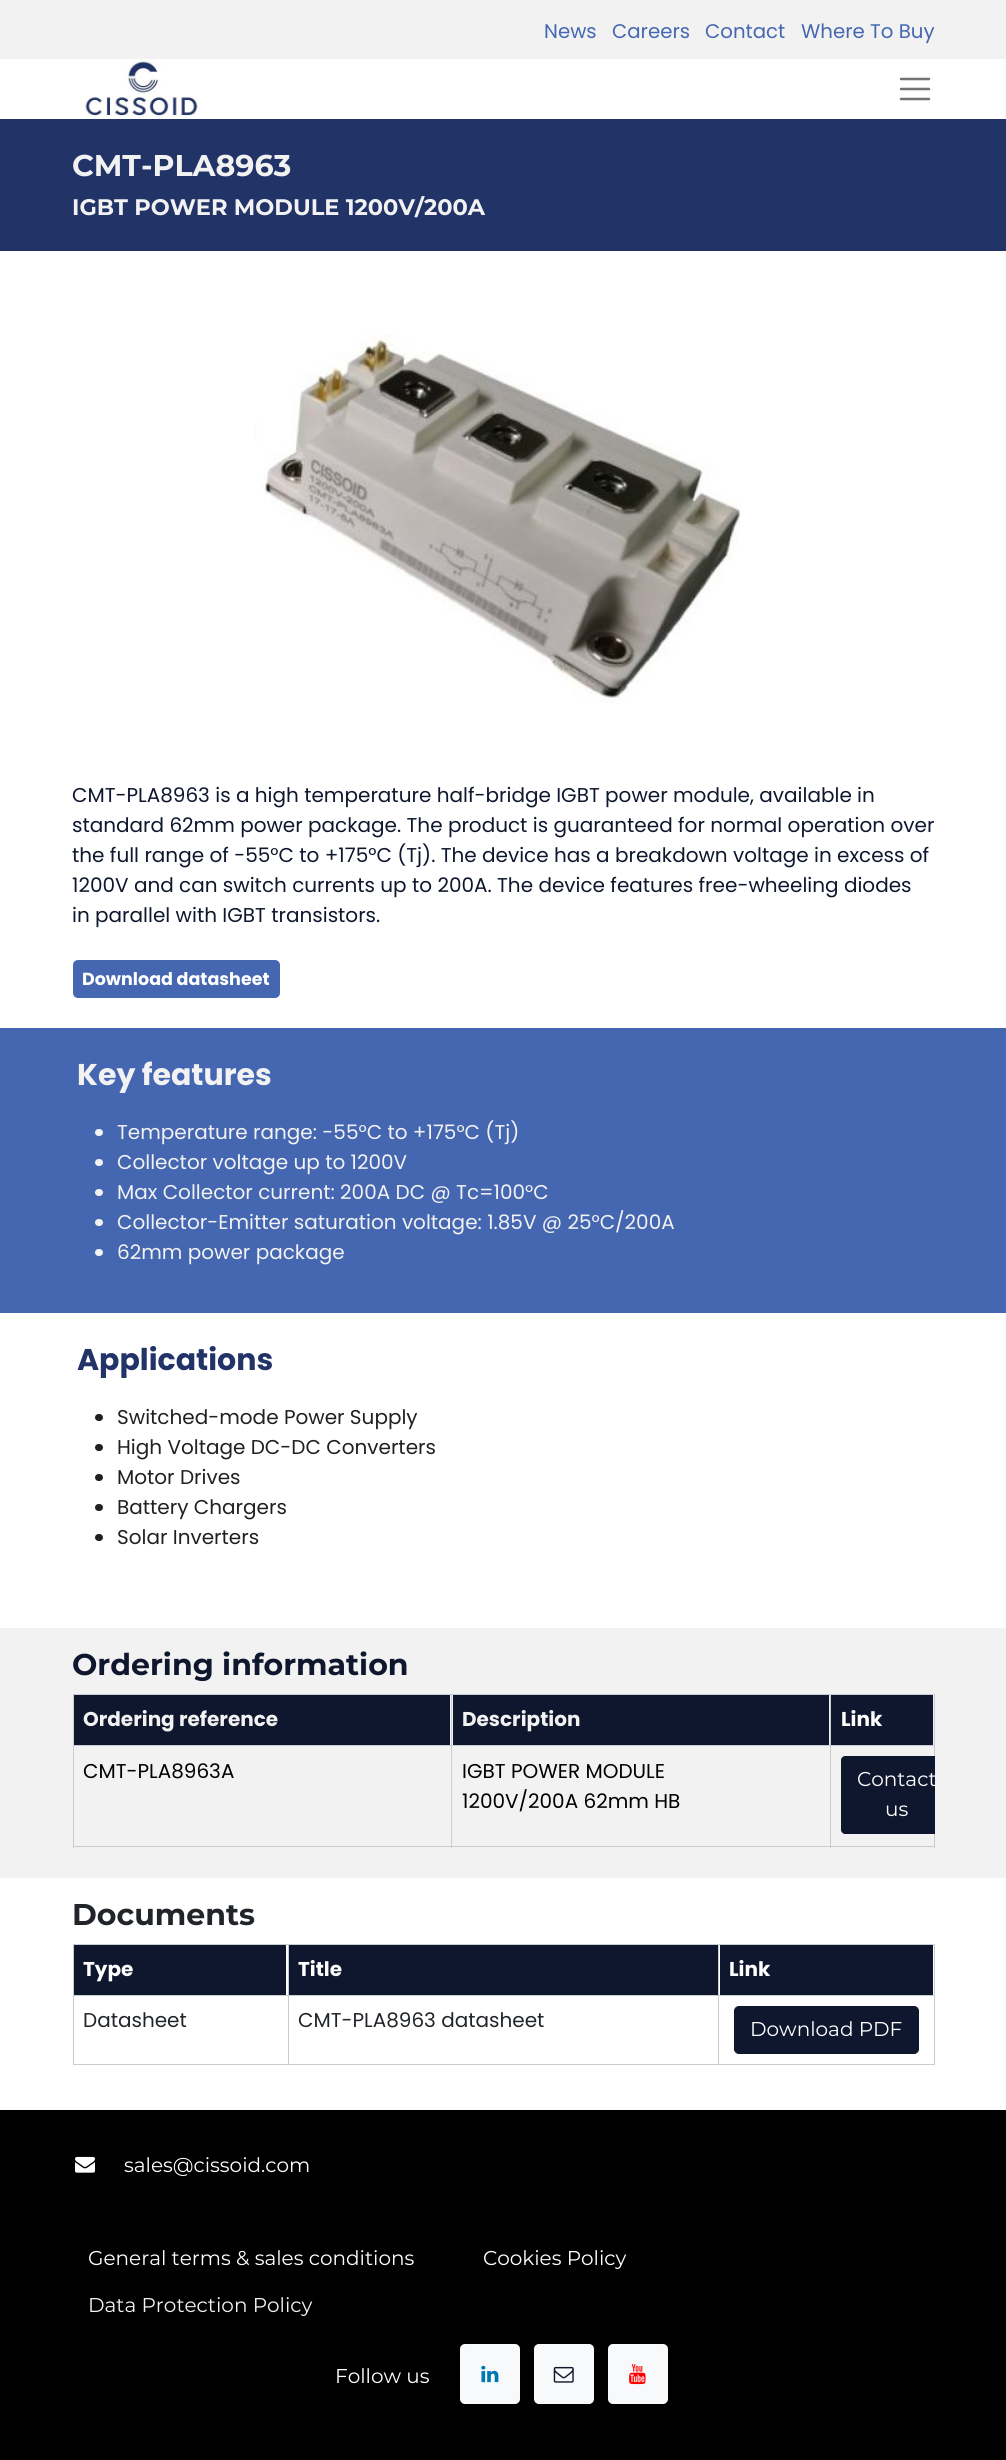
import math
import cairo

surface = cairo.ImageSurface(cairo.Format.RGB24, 1006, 2460)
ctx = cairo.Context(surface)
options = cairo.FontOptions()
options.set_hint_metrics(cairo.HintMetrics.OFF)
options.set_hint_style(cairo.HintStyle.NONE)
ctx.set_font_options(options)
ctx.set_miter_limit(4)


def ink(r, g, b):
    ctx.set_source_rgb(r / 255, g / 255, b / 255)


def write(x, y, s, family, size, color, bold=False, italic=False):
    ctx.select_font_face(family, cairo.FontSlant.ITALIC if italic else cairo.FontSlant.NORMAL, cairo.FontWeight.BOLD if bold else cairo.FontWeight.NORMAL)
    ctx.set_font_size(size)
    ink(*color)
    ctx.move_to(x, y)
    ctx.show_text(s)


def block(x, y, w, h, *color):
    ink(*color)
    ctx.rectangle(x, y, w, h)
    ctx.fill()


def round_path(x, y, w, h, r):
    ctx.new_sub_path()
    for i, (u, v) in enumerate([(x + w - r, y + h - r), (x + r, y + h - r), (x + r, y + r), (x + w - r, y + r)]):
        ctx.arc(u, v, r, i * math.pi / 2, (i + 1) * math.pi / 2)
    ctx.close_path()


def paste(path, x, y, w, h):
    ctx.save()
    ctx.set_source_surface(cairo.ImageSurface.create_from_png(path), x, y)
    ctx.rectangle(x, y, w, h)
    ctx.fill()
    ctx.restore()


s1 = dict(family="Poppins", size=19.75, color=(69, 103, 177))
s2 = dict(family="Montserrat", size=30, color=(242, 242, 242), bold=True)
s3 = dict(family="Montserrat", size=22.5, color=(242, 242, 242), bold=True)
s4 = dict(family="Poppins", size=20, color=(15, 23, 46))
s5 = dict(family="Poppins", size=17.5, color=(255, 255, 255), bold=True)
s6 = dict(family="Poppins", size=30, color=(242, 242, 242), bold=True)
s7 = dict(family="Poppins", size=20, color=(242, 242, 242))
s8 = dict(family="Poppins", size=30, color=(34, 51, 104), bold=True)
s9 = dict(family="Poppins", size=20, color=(32, 32, 32))
s10 = dict(family="Montserrat", size=30, color=(15, 23, 46), bold=True)
s11 = dict(family="Poppins", size=20, color=(242, 242, 242), bold=True)
s12 = dict(family="Poppins", size=20, color=(255, 255, 255), bold=True)
s13 = dict(family="Poppins", size=20, color=(0, 0, 0))
s14 = dict(family="Montserrat", size=20, color=(255, 255, 255))
s15 = dict(family="Montserrat", size=30, color=(33, 37, 41), bold=True)
s16 = dict(family="Poppins", size=20, color=(33, 37, 41))
s17 = dict(family="Montserrat", size=20, color=(242, 242, 242))

ink(255, 255, 255)
ctx.paint()
block(0, 0, 1006, 59, 242, 242, 242)
write(544, 38, "News", **s1)
write(612, 38, "Careers", **s1)
write(705, 38, "Contact", **s1)
write(801, 38, "Where To Buy", **s1)
paste("pic1.png", 80, 59, 120, 60)
ctx.new_path()
ctx.move_to(901, 79)
ctx.line_to(929, 79)
ctx.move_to(901, 89)
ctx.line_to(929, 89)
ctx.move_to(901, 99)
ctx.line_to(929, 99)
ink(115, 115, 115)
ctx.set_line_width(2.5)
ctx.set_line_cap(cairo.LineCap.ROUND)
ctx.stroke()
block(0, 119, 1006, 132, 34, 51, 104)
write(72, 176, "CMT-PLA8963", **s2)
write(72, 215, "IGBT POWER MODULE 1200V/200A", **s3)
paste("pic2.png", 255, 334, 486, 369)
write(72, 802, "CMT-PLA8963 is a high temperature half-bridge IGBT power module, available in", **s4)
write(72, 832, "standard 62mm power package. The product is guaranteed for normal operation over", **s4)
write(72, 862, "the full range of -55°C to +175°C (Tj). The device has a breakdown voltage in excess of", **s4)
write(72, 892, "1200V and can switch currents up to 200A. The device features free-wheeling diodes", **s4)
write(72, 922, "in parallel with IGBT transistors.", **s4)
ink(69, 103, 177)
round_path(73, 960, 207, 38, 5)
ctx.fill()
write(82, 985, "Download datasheet", **s5)
block(0, 1028, 1006, 285, 69, 103, 177)
write(77, 1085, "Key features", **s6)
round_path(95, 1129, 8, 7, 3.5)
ctx.fill()
write(117, 1139, "Temperature range: -55°C to +175°C (Tj)", **s7)
round_path(95, 1159, 8, 7, 3.5)
ctx.fill()
write(117, 1169, "Collector voltage up to 1200V", **s7)
round_path(95, 1189, 8, 7, 3.5)
ctx.fill()
write(117, 1199, "Max Collector current: 200A DC @ Tc=100°C", **s7)
round_path(95, 1219, 8, 7, 3.5)
ctx.fill()
write(117, 1229, "Collector-Emitter saturation voltage: 1.85V @ 25°C/200A", **s7)
round_path(95, 1249, 8, 7, 3.5)
ctx.fill()
write(117, 1259, "62mm power package", **s7)
write(77, 1370, "Applications", **s8)
ink(32, 32, 32)
round_path(95, 1414, 8, 7, 3.5)
ctx.fill()
write(117, 1424, "Switched-mode Power Supply", **s9)
round_path(95, 1444, 8, 7, 3.5)
ctx.fill()
write(117, 1454, "High Voltage DC-DC Converters", **s9)
round_path(95, 1474, 8, 7, 3.5)
ctx.fill()
write(117, 1484, "Motor Drives", **s9)
round_path(95, 1504, 8, 7, 3.5)
ctx.fill()
write(117, 1514, "Battery Chargers", **s9)
round_path(95, 1534, 8, 7, 3.5)
ctx.fill()
write(117, 1544, "Solar Inverters", **s9)
block(0, 1628, 1006, 250, 242, 242, 242)
write(72, 1675, "Ordering information", **s10)
block(73, 1694, 862, 1, 201, 204, 210)
block(74, 1695, 376, 50, 15, 23, 46)
write(83, 1726, "Ordering reference", **s11)
block(453, 1695, 376, 50, 15, 23, 46)
write(462, 1726, "Description", **s11)
block(831, 1695, 102, 50, 15, 23, 46)
write(841, 1726, "Link", **s12)
block(73, 1745, 862, 1, 201, 204, 210)
block(73, 1846, 862, 1, 201, 204, 210)
block(73, 1694, 1, 154, 201, 204, 210)
write(83, 1778, "CMT-PLA8963A", **s13)
block(451, 1694, 1, 154, 201, 204, 210)
write(462, 1778, "IGBT POWER MODULE", **s13)
write(462, 1808, "1200V/200A 62mm HB", **s13)
block(934, 1694, 1, 154, 201, 204, 210)
block(830, 1694, 1, 154, 201, 204, 210)
ink(15, 23, 46)
ctx.new_path()
ctx.move_to(846, 1756)
ctx.line_to(935, 1756)
ctx.line_to(935, 1834)
ctx.line_to(846, 1834)
ctx.curve_to(843, 1834, 841, 1832, 841, 1829)
ctx.line_to(841, 1761)
ctx.curve_to(841, 1758, 843, 1756, 846, 1756)
ctx.close_path()
ctx.fill()
ctx.save()
ctx.rectangle(73, 1694, 862, 174)
ctx.clip()
round_path(841.5, 1756.5, 111, 77, 4.5)
ctx.set_line_width(1)
ctx.set_line_cap(cairo.LineCap.BUTT)
ctx.stroke()
write(857, 1786, "Contact", **s14)
ctx.restore()
write(885, 1816, "us", **s14)
write(72, 1925, "Documents", **s15)
block(73, 1944, 862, 1, 201, 204, 210)
block(74, 1945, 212, 50, 15, 23, 46)
write(83, 1976, "Type", **s12)
block(289, 1945, 429, 50, 15, 23, 46)
write(298, 1976, "Title", **s12)
block(720, 1945, 213, 50, 15, 23, 46)
write(729, 1976, "Link", **s12)
block(73, 1995, 862, 1, 201, 204, 210)
block(73, 2064, 862, 1, 201, 204, 210)
block(73, 1944, 1, 121, 201, 204, 210)
write(83, 2027, "Datasheet", **s16)
block(288, 1944, 1, 121, 201, 204, 210)
write(298, 2027, "CMT-PLA8963 datasheet", **s16)
block(934, 1944, 1, 121, 201, 204, 210)
block(718, 1944, 1, 121, 201, 204, 210)
ink(15, 23, 46)
round_path(734.5, 2006.5, 184, 47, 4.5)
ctx.fill_preserve()
ctx.set_line_width(1)
ctx.set_line_cap(cairo.LineCap.BUTT)
ctx.stroke()
write(750, 2036, "Download PDF", **s14)
block(0, 2110, 1006, 350, 0, 0, 0)
paste("pic3.png", 75, 2156, 20, 17)
write(124, 2172, "sales@cissoid.com", **s14)
write(88, 2265, "General terms & sales conditions", **s14)
write(483, 2265, "Cookies Policy", **s14)
write(88, 2312, "Data Protection Policy", **s17)
write(335, 2383, "Follow us", **s14)
ink(248, 249, 250)
round_path(460, 2344, 60, 60, 5)
ctx.fill()
paste("pic4.png", 481, 2365, 18, 18)
round_path(534, 2344, 60, 60, 5)
ctx.fill()
paste("pic5.png", 553, 2366, 21, 17)
round_path(608, 2344, 60, 60, 5)
ctx.fill()
paste("pic6.png", 629, 2364, 17, 21)
surface.write_to_png("screenshot.png")
